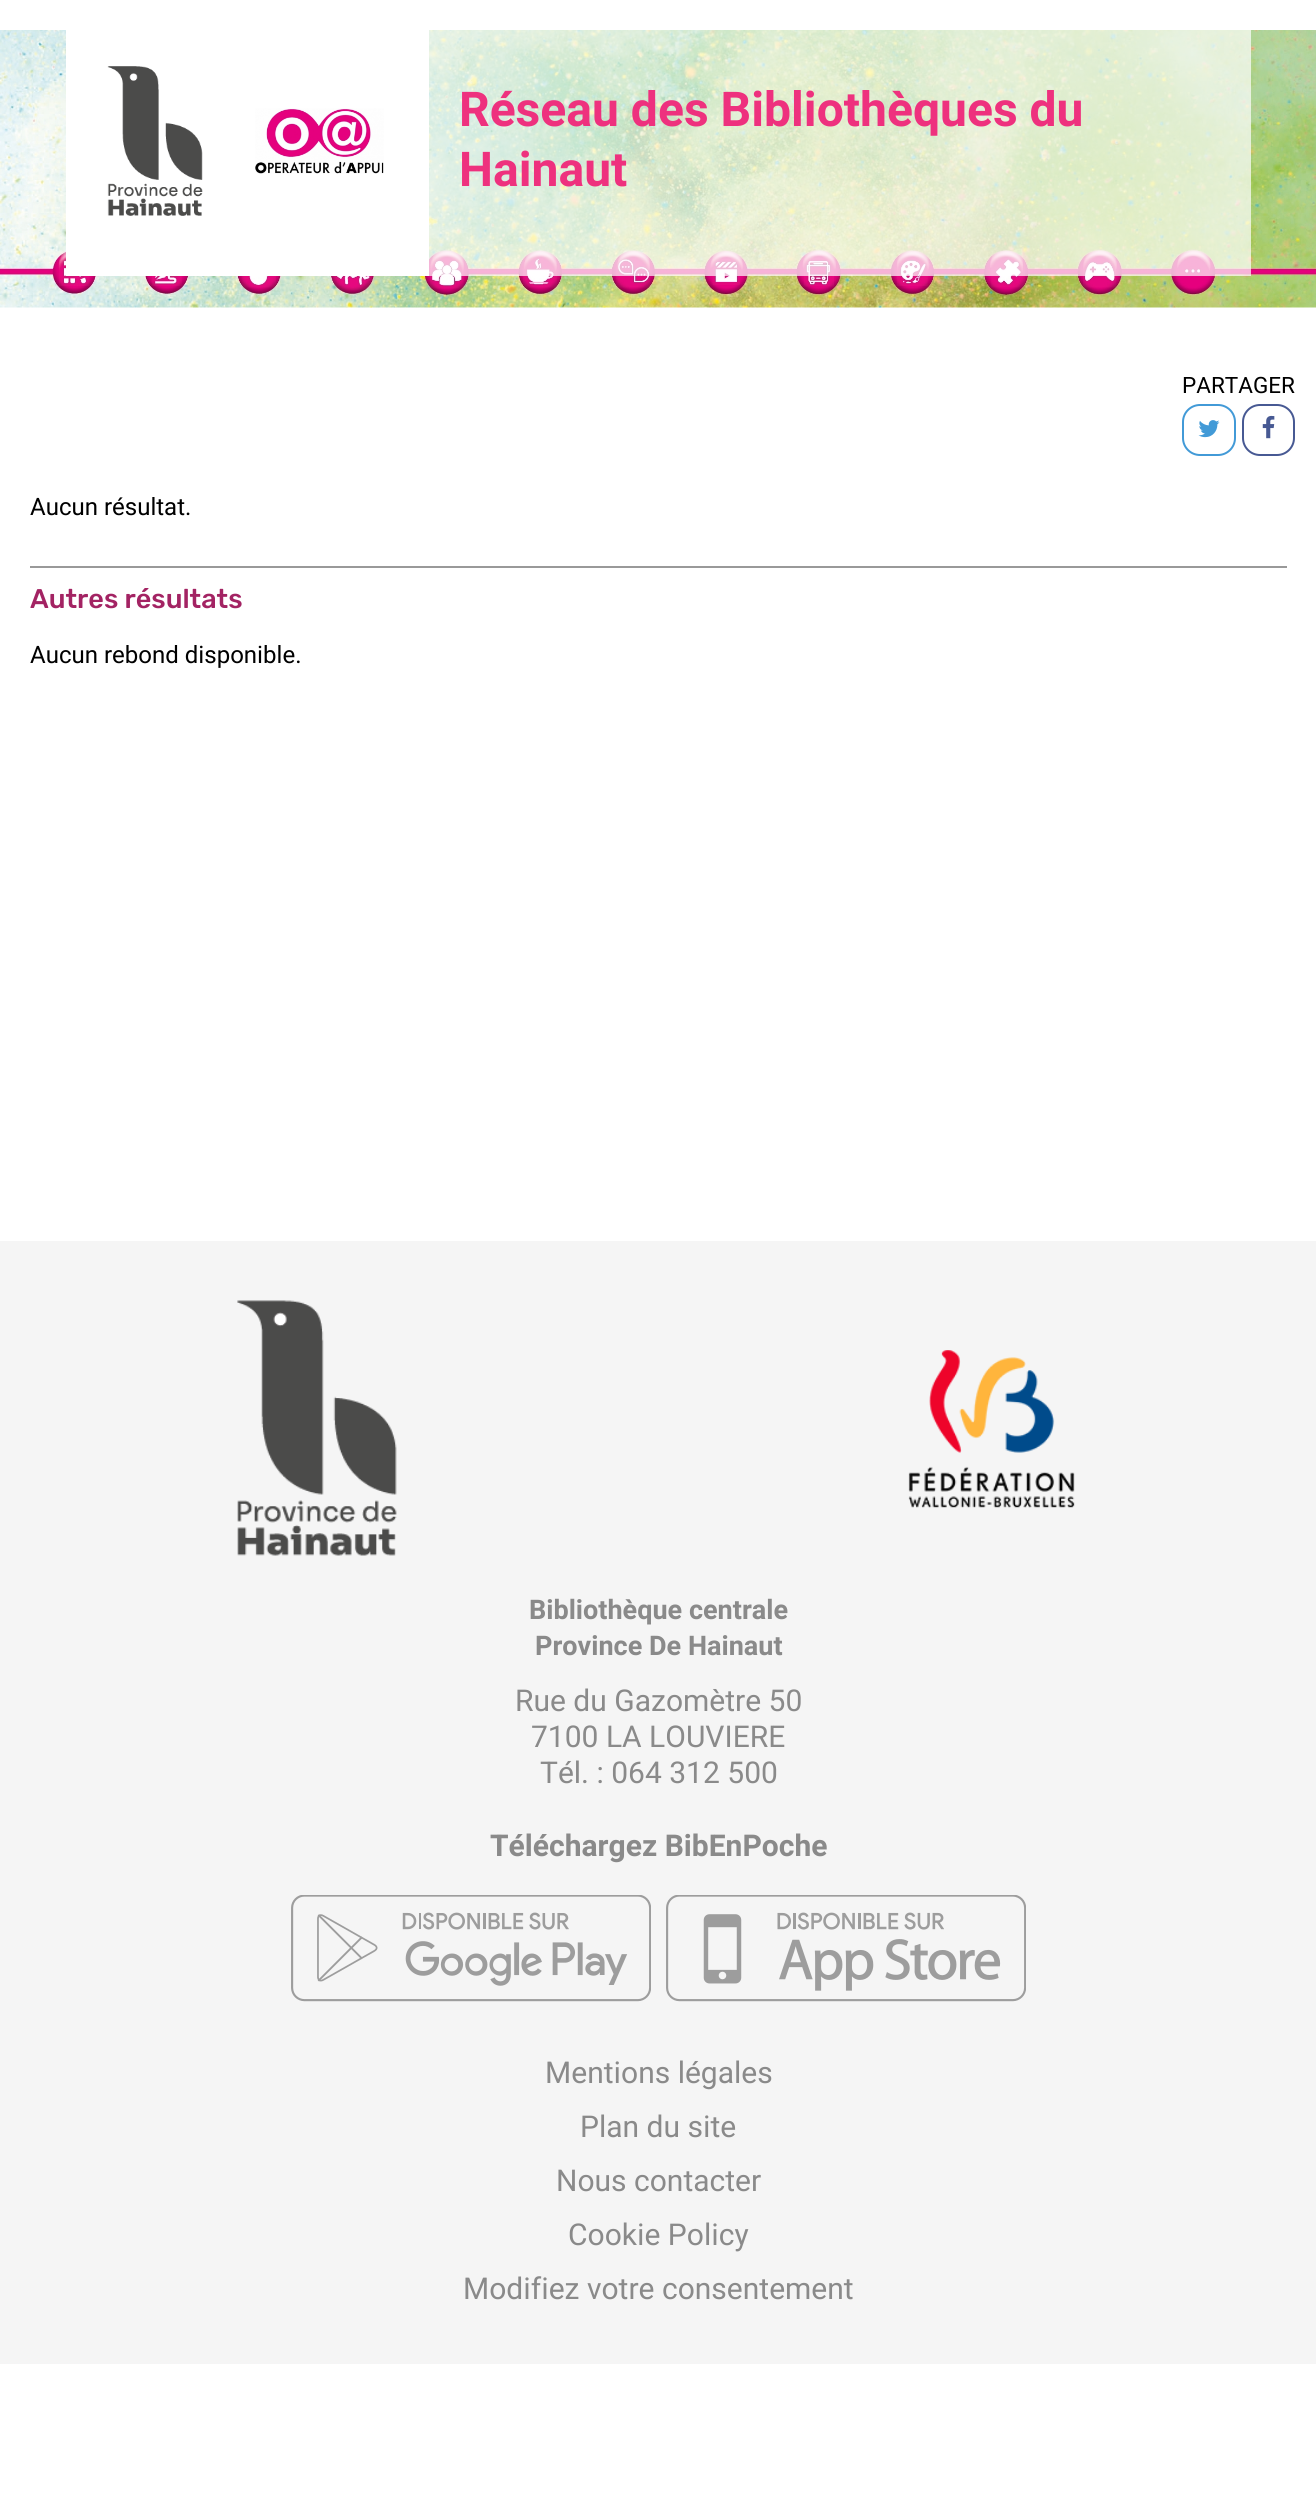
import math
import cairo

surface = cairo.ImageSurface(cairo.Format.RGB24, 1316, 2498)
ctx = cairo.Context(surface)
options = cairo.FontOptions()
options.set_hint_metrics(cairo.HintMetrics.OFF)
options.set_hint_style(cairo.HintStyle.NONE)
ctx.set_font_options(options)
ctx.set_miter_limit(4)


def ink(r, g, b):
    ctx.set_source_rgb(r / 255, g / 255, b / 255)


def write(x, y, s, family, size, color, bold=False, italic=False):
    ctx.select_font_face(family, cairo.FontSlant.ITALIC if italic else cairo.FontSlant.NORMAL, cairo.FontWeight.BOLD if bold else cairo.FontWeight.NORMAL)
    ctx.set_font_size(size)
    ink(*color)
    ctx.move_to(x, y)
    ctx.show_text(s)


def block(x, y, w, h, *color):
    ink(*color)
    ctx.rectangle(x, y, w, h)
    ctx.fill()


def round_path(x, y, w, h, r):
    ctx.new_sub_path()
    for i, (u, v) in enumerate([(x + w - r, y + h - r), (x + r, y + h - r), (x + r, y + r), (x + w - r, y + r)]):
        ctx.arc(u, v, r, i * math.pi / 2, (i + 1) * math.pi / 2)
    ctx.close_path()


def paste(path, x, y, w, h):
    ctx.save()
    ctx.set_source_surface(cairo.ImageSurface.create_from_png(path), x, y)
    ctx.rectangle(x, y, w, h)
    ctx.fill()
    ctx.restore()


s1 = dict(family="Heebo", size=48, color=(238, 49, 126), bold=True)
s2 = dict(family="Heebo", size=22.5, color=(0, 0, 0))
s3 = dict(family="Heebo", size=24, color=(0, 0, 0))
s4 = dict(family="Rubik Medium", size=27, color=(163, 35, 99))
s5 = dict(family="Heebo", size=27, color=(138, 138, 138), bold=True)
s6 = dict(family="Heebo", size=30, color=(138, 138, 138))
s7 = dict(family="Heebo", size=30, color=(138, 138, 138), bold=True)

ink(255, 255, 255)
ctx.paint()
paste("pic1.png", 0, 30, 1316, 278)
block(66, 30, 363, 246, 255, 255, 255)
paste("pic2.png", 107, 66, 96, 150)
paste("pic3.png", 255, 108, 129, 66)
ctx.set_source_rgba(1, 1, 1, 0.7)
ctx.rectangle(429, 30, 822, 246)
ctx.fill()
write(459, 126, "Réseau des Bibliothèques du", **s1)
write(459, 186, "Hainaut", **s1)
write(1182, 393, "PARTAGER", **s2)
round_path(1183, 405, 52, 50, 17)
ink(66, 154, 215)
ctx.stroke()
paste("pic4.png", 1198, 420, 22, 18)
round_path(1243, 405, 51, 50, 17)
ink(71, 89, 147)
ctx.stroke()
paste("pic5.png", 1262, 415, 13, 24)
write(30, 515, "Aucun résultat.", **s3)
block(30, 566, 1257, 2, 153, 153, 153)
write(30, 608, "Autres résultats", **s4)
write(30, 663, "Aucun rebond disponible.", **s3)
block(0, 1241, 1316, 1123, 245, 245, 245)
paste("pic6.png", 237, 1300, 160, 256)
paste("pic7.png", 908, 1350, 167, 158)
write(529, 1619, "Bibliothèque centrale", **s5)
write(535, 1655, "Province De Hainaut", **s5)
write(515, 1711, "Rue du Gazomètre 50", **s6)
write(531, 1747, "7100 LA LOUVIERE", **s6)
write(540, 1783, "Tél. : 064 312 500", **s6)
write(490, 1856, "Téléchargez BibEnPoche", **s7)
paste("pic8.png", 291, 1895, 360, 107)
paste("pic9.png", 666, 1895, 360, 107)
write(545, 2083, "Mentions légales", **s6)
write(580, 2137, "Plan du site", **s6)
write(556, 2191, "Nous contacter", **s6)
write(568, 2245, "Cookie Policy", **s6)
write(463, 2299, "Modifiez votre consentement", **s6)
surface.write_to_png("screenshot.png")
